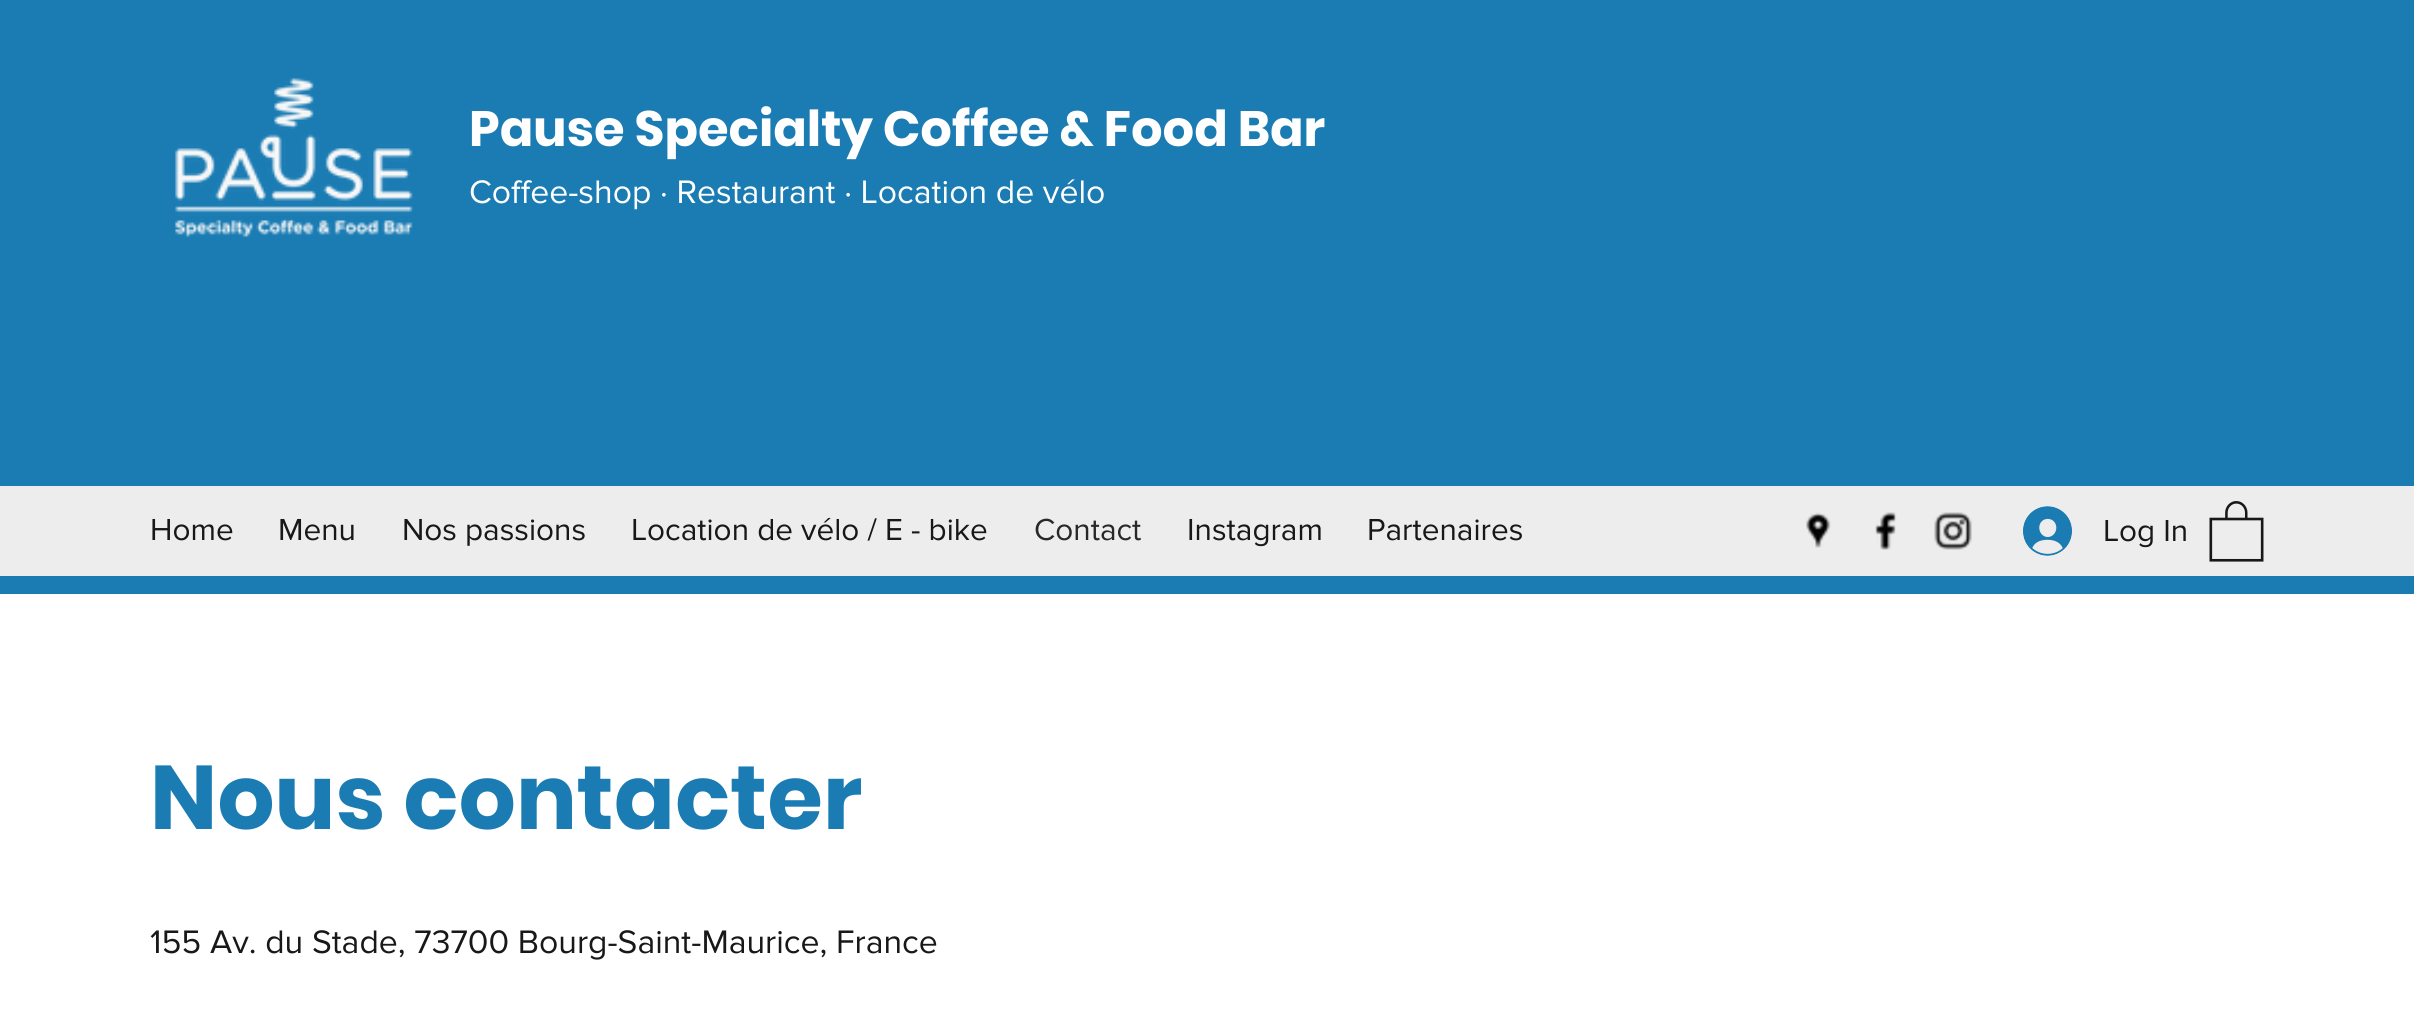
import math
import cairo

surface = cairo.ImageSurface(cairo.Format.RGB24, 2414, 1011)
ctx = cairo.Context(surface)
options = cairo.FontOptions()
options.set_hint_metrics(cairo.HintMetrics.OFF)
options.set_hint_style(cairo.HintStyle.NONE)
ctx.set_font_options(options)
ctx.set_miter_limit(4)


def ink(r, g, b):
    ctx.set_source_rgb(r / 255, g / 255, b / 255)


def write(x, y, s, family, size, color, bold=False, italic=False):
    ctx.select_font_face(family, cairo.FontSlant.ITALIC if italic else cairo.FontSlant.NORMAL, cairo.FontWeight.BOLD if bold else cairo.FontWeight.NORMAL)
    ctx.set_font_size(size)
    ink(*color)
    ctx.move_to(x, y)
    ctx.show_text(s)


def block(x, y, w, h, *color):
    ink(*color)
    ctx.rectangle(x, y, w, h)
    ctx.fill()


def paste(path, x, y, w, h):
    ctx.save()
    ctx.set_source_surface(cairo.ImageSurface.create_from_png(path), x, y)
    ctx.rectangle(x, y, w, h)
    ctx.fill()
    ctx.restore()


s1 = dict(family="Poppins", size=49.5, color=(255, 255, 255), bold=True)
s2 = dict(family="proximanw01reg", size=33.75, color=(255, 255, 255))
s3 = dict(family="proximanw01reg", size=31.5, color=(24, 24, 24))
s4 = dict(family="proximanw01reg", size=31.5, color=(40, 40, 40))
s5 = dict(family="Poppins", size=90, color=(27, 124, 180), bold=True)
s6 = dict(family="proximanw01reg", size=33.75, color=(24, 24, 24))

ink(255, 255, 255)
ctx.paint()
block(0, 0, 2414, 594, 27, 124, 180)
paste("pic1.png", 175, 78, 238, 159)
write(469, 146, "Pause Specialty Coffee & Food Bar", **s1)
write(469, 203, "Coffee-shop · Restaurant · Location de vélo", **s2)
block(0, 486, 2414, 90, 237, 237, 237)
write(150, 540, "Home", **s3)
write(278, 540, "Menu", **s3)
write(402, 540, "Nos passions", **s3)
write(631, 540, "Location de vélo / E - bike", **s3)
write(1034, 540, "Contact", **s4)
write(1187, 540, "Instagram", **s3)
write(1367, 540, "Partenaires", **s3)
paste("pic2.png", 1806, 512, 25, 36)
paste("pic3.png", 1875, 512, 22, 38)
paste("pic4.png", 1934, 512, 38, 38)
paste("pic5.png", 2023, 506, 49, 50)
write(2103, 541, "Log In", **s3)
paste("pic6.png", 2209, 501, 55, 61)
write(150, 829, "Nous contacter", **s5)
write(150, 953, "155 Av. du Stade, 73700 Bourg-Saint-Maurice, France", **s6)
surface.write_to_png("screenshot.png")
